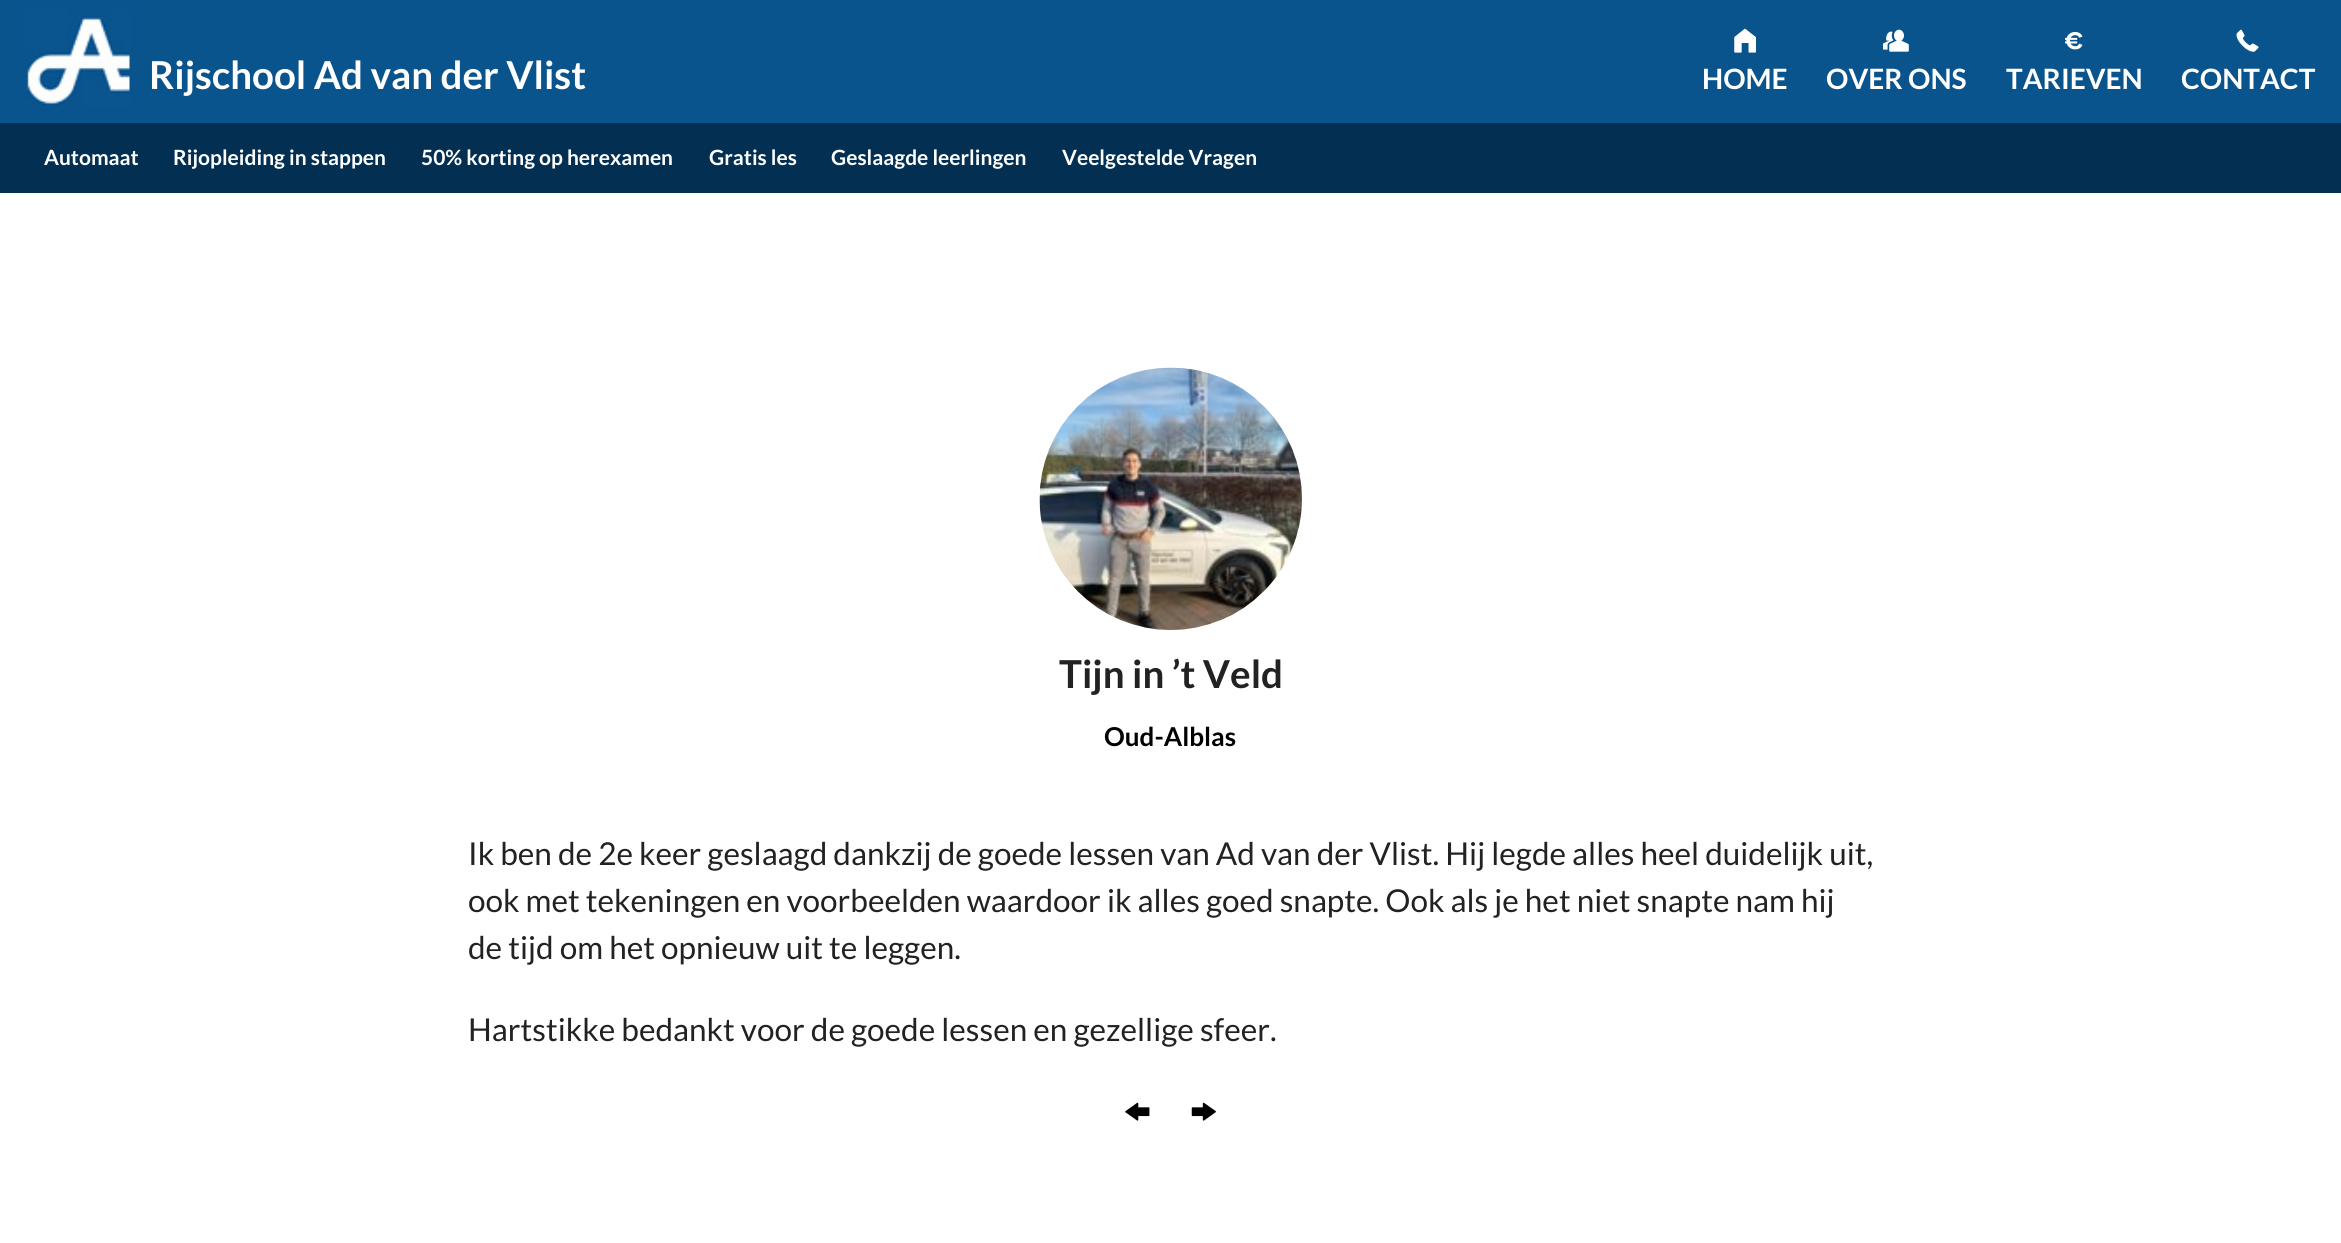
import math
import cairo

surface = cairo.ImageSurface(cairo.Format.RGB24, 2341, 1243)
ctx = cairo.Context(surface)
options = cairo.FontOptions()
options.set_hint_metrics(cairo.HintMetrics.OFF)
options.set_hint_style(cairo.HintStyle.NONE)
ctx.set_font_options(options)
ctx.set_miter_limit(4)


def ink(r, g, b):
    ctx.set_source_rgb(r / 255, g / 255, b / 255)


def write(x, y, s, family, size, color, bold=False, italic=False):
    ctx.select_font_face(family, cairo.FontSlant.ITALIC if italic else cairo.FontSlant.NORMAL, cairo.FontWeight.BOLD if bold else cairo.FontWeight.NORMAL)
    ctx.set_font_size(size)
    ink(*color)
    ctx.move_to(x, y)
    ctx.show_text(s)


def block(x, y, w, h, *color):
    ink(*color)
    ctx.rectangle(x, y, w, h)
    ctx.fill()


def paste(path, x, y, w, h):
    ctx.save()
    ctx.set_source_surface(cairo.ImageSurface.create_from_png(path), x, y)
    ctx.rectangle(x, y, w, h)
    ctx.fill()
    ctx.restore()


s1 = dict(family="Lato", size=38.5, color=(255, 255, 255), bold=True)
s2 = dict(family="Lato", size=28, color=(255, 255, 255), bold=True)
s3 = dict(family="Lato", size=21, color=(255, 255, 255), bold=True)
s4 = dict(family="Lato", size=38.5, color=(34, 34, 34), bold=True)
s5 = dict(family="Lato", size=26, color=(0, 0, 0), bold=True)
s6 = dict(family="Lato", size=31.5, color=(34, 34, 34))

ink(255, 255, 255)
ctx.paint()
block(0, 0, 2341, 123, 10, 84, 142)
paste("pic1.png", 26, 9, 106, 98)
write(149, 89, "Rijschool Ad van der Vlist", **s1)
paste("pic2.png", 1734, 28, 22, 25)
write(1702, 89, "HOME", **s2)
paste("pic3.png", 1883, 29, 26, 23)
write(1826, 89, "OVER ONS", **s2)
paste("pic4.png", 2065, 31, 18, 19)
write(2006, 89, "TARIEVEN", **s2)
paste("pic5.png", 2236, 29, 23, 23)
write(2181, 89, "CONTACT", **s2)
block(0, 123, 2341, 70, 3, 47, 82)
write(44, 165, "Automaat", **s3)
write(173, 165, "Rijopleiding in stappen", **s3)
write(421, 165, "50% korting op herexamen", **s3)
write(709, 165, "Gratis les", **s3)
write(831, 165, "Geslaagde leerlingen", **s3)
write(1062, 165, "Veelgestelde Vragen", **s3)
paste("pic6.png", 1039, 367, 263, 263)
write(1059, 688, "Tijn in ’t Veld", **s4)
write(1104, 746, "Oud-Alblas", **s5)
write(468, 865, "Ik ben de 2e keer geslaagd dankzij de goede lessen van Ad van der Vlist. Hij legde alles heel duidelijk uit,", **s6)
write(468, 912, "ook met tekeningen en voorbeelden waardoor ik alles goed snapte. Ook als je het niet snapte nam hij", **s6)
write(468, 959, "de tijd om het opnieuw uit te leggen.", **s6)
write(468, 1041, "Hartstikke bedankt voor de goede lessen en gezellige sfeer.", **s6)
paste("pic7.png", 1125, 1102, 25, 19)
paste("pic8.png", 1191, 1102, 25, 19)
surface.write_to_png("screenshot.png")
